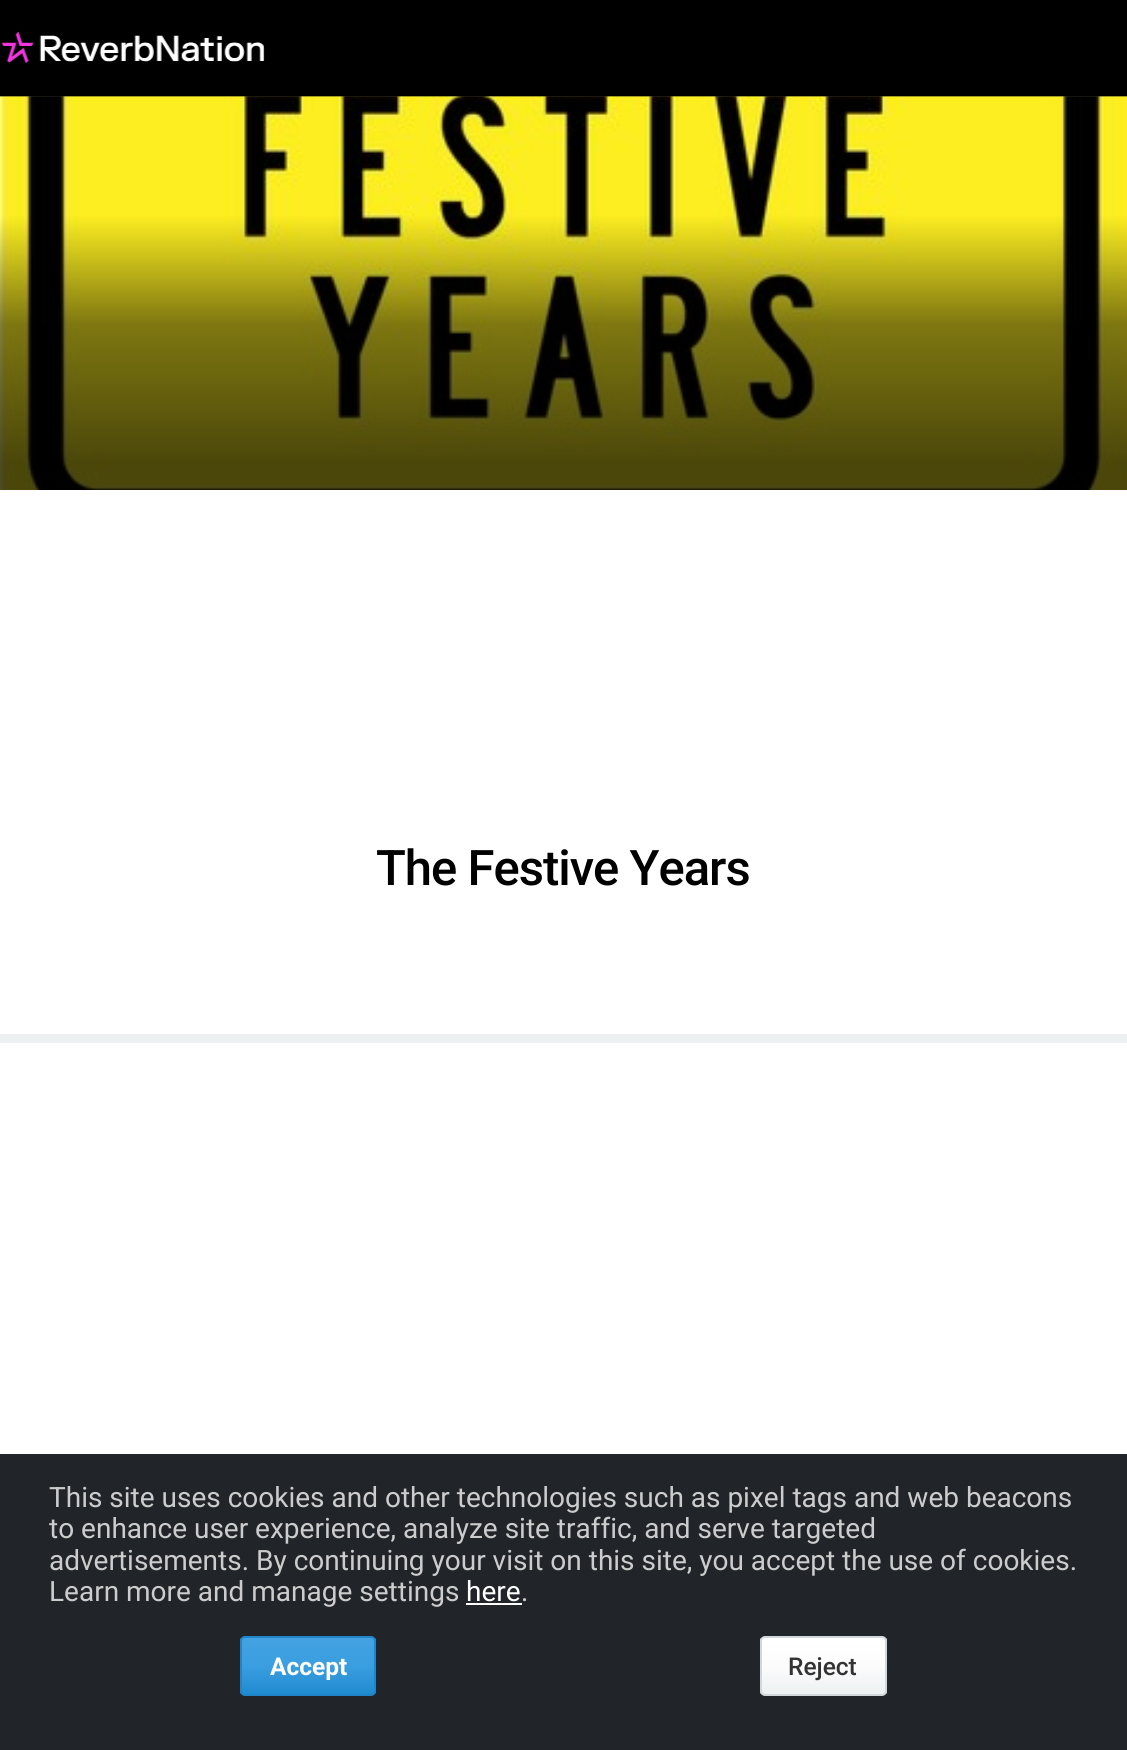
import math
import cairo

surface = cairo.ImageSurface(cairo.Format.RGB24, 1127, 1750)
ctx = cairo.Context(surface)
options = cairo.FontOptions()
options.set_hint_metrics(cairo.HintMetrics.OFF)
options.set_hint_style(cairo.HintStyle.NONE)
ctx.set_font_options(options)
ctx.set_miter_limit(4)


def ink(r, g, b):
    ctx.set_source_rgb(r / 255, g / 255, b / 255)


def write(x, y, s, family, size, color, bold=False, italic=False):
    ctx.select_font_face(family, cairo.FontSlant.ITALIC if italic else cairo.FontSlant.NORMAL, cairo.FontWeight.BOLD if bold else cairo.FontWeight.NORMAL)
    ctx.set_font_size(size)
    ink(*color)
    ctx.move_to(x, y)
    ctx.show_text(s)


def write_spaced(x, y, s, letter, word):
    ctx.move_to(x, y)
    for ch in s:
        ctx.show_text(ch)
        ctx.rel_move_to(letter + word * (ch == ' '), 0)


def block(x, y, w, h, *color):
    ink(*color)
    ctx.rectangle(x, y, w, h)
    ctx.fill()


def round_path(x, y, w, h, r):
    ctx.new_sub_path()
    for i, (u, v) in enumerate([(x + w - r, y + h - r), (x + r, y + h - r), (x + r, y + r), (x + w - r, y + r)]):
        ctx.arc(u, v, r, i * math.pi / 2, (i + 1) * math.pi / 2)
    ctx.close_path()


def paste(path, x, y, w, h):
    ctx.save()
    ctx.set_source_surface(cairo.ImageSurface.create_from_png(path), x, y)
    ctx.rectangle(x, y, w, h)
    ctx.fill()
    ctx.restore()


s1 = dict(family="Roboto", size=28, color=(204, 204, 204))
s2 = dict(family="Roboto", size=28, color=(255, 255, 255))
s3 = dict(family="Roboto", size=24.5, color=(255, 255, 255), bold=True)
s4 = dict(family="Roboto Medium", size=24.5, color=(51, 51, 51))

ink(255, 255, 255)
ctx.paint()
block(0, 0, 1127, 96, 0, 0, 0)
paste("pic1.png", 1, 31, 264, 32)
block(0, 96, 1127, 1, 49, 49, 35)
paste("pic2.png", 0, 96, 1127, 394)
ctx.select_font_face("Roboto Medium")
ctx.set_font_size(49)
ink(0, 0, 0)
write_spaced(376, 885, "The Festive Years", -1, 0)
block(0, 1034, 1127, 9, 237, 240, 241)
block(0, 1454, 1127, 296, 33, 37, 41)
write(49, 1507, "This site uses cookies and other technologies such as pixel tags and web beacons", **s1)
write(49, 1538, "to enhance user experience, analyze site traffic, and serve targeted", **s1)
write(49, 1570, "advertisements. By continuing your visit on this site, you accept the use of cookies.", **s1)
write(49, 1601, "Learn more and manage settings", **s1)
write(466, 1601, "here", **s2)
block(466, 1603, 56, 2, 255, 255, 255)
write(521, 1601, ".", **s1)
ctx.save()
round_path(240, 1636, 136, 60, 5)
ctx.clip()
gradient = cairo.LinearGradient(308, 1638, 308, 1694)
gradient.add_color_stop_rgba(0, 0.263, 0.635, 0.882, 1)
gradient.add_color_stop_rgba(0.5, 0.227, 0.62, 0.878, 1)
gradient.add_color_stop_rgba(1, 0.129, 0.545, 0.816, 1)
ctx.set_source(gradient)
ctx.rectangle(240, 1638, 136, 56)
ctx.fill()
ctx.restore()
round_path(241, 1637, 134, 58, 4)
ink(31, 133, 200)
ctx.stroke()
write(270, 1675, "Accept", **s3)
ctx.save()
round_path(760, 1636, 127, 60, 5)
ctx.clip()
gradient = cairo.LinearGradient(823, 1638, 823, 1694)
gradient.add_color_stop_rgba(0, 1, 1, 1, 1)
gradient.add_color_stop_rgba(0.5, 0.988, 0.988, 0.988, 1)
gradient.add_color_stop_rgba(1, 0.929, 0.945, 0.949, 1)
ctx.set_source(gradient)
ctx.rectangle(760, 1638, 127, 56)
ctx.fill()
ctx.restore()
round_path(761, 1637, 125, 58, 4)
ink(208, 216, 219)
ctx.stroke()
write(788, 1675, "Reject", **s4)
surface.write_to_png("screenshot.png")
